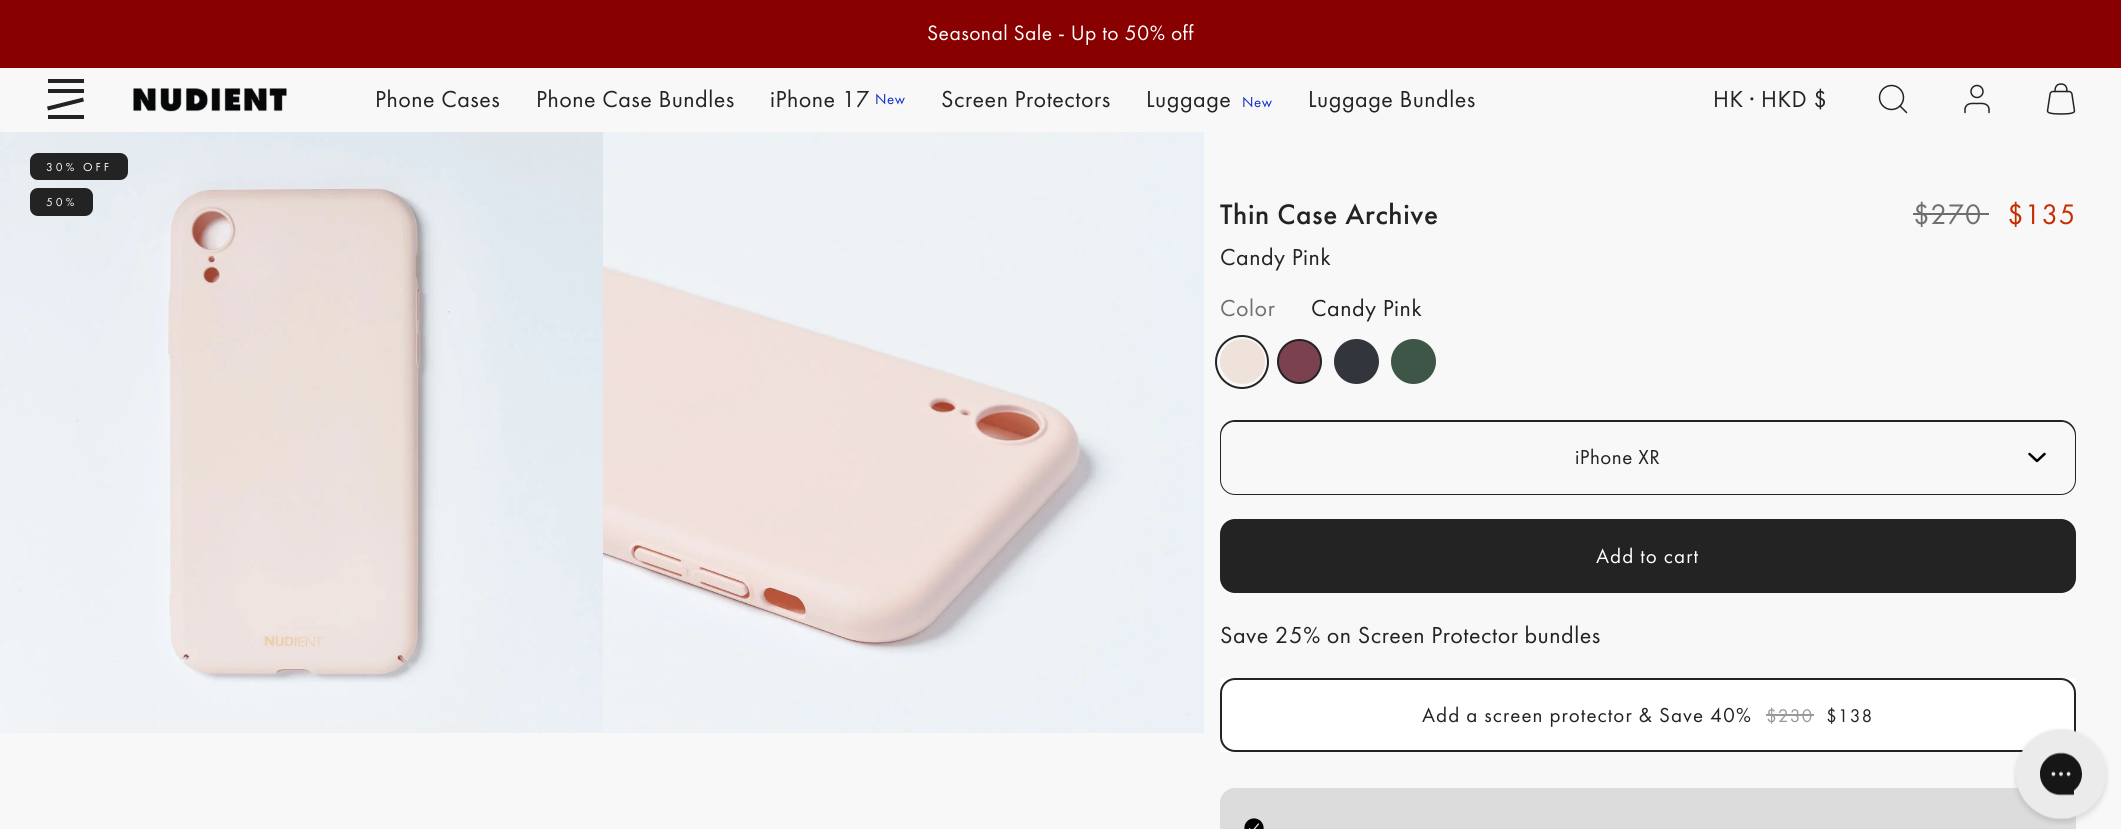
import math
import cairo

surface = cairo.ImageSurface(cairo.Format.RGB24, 2121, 829)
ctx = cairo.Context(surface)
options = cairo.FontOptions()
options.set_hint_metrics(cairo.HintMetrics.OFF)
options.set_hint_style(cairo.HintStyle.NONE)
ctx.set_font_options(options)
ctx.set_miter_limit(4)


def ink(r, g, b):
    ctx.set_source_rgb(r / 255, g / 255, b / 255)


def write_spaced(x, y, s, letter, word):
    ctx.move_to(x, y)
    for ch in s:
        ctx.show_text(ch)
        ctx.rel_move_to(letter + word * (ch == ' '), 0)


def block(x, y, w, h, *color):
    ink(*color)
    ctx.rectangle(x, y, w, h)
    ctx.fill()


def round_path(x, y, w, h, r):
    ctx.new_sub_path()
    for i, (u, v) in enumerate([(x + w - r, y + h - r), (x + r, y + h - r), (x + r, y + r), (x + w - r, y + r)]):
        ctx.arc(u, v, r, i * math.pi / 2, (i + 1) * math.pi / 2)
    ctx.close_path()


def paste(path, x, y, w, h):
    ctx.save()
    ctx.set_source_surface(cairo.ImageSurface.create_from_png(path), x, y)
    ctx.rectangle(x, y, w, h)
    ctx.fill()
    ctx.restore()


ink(248, 248, 248)
ctx.paint()
block(0, 0, 2121, 68, 137, 0, 0)
ctx.select_font_face("Futura PT")
ctx.set_font_size(21.6)
ink(255, 255, 255)
write_spaced(927, 40, "Seasonal Sale - Up to 50% off", 0.4, 0)
block(48, 79, 36, 4, 35, 35, 35)
block(48, 115, 36, 4, 35, 35, 35)
block(48, 89, 36, 4, 35, 35, 35)
ctx.new_path()
ctx.move_to(47.5, 108.5)
ctx.line_to(83.5, 99.5)
ctx.set_line_width(4)
ctx.stroke()
paste("pic1.png", 133, 88, 154, 24)
ctx.set_font_size(24)
write_spaced(375, 107, "Phone Cases", 0.5, 0)
write_spaced(536, 107, "Phone Case Bundles", 0.5, 0)
write_spaced(770, 107, "iPhone 17", 0.5, 0)
ctx.set_font_size(15)
ink(14, 44, 199)
write_spaced(875, 104, "New", 0.5, 0)
ctx.set_font_size(24)
ink(35, 35, 35)
write_spaced(941, 107, "Screen Protectors", 0.5, 0)
write_spaced(1146, 107, "Luggage", 0.5, 0)
ctx.set_font_size(15)
ink(14, 44, 199)
write_spaced(1242, 107, "New", 0.5, 0)
ctx.set_font_size(24)
ink(35, 35, 35)
write_spaced(1308, 107, "Luggage Bundles", 0.5, 0)
write_spaced(1713, 107, "HK · HKD $", 0.5, 0)
ctx.new_path()
ctx.arc(1891.5, 97.5, 12, 0, 2 * math.pi)
ctx.set_line_width(1.5)
ctx.stroke()
ctx.new_path()
ctx.move_to(1906.5, 112.5)
ctx.line_to(1900, 106)
ctx.set_line_cap(cairo.LineCap.ROUND)
ctx.set_line_join(cairo.LineJoin.ROUND)
ctx.stroke()
ctx.new_path()
ctx.move_to(1989, 112.5)
ctx.line_to(1989, 108.5)
ctx.curve_to(1987.5, 102.5, 1981.5, 103.5, 1977, 103.5)
ctx.curve_to(1972.5, 103.5, 1966.5, 102.5, 1965, 108.5)
ctx.line_to(1965, 112.5)
ctx.stroke()
ctx.arc(1977, 91.5, 6, 0, 2 * math.pi)
ctx.set_line_cap(cairo.LineCap.BUTT)
ctx.set_line_join(cairo.LineJoin.MITER)
ctx.stroke()
paste("pic2.png", 2046, 83, 30, 32)
paste("pic3.png", 0, 132, 603, 601)
paste("pic4.png", 603, 132, 602, 601)
round_path(30, 153, 98, 27, 8)
ctx.fill()
ctx.set_font_size(12)
ink(255, 255, 255)
write_spaced(46, 171, "30% OFF", 3, 0)
ink(35, 35, 35)
round_path(30, 188, 63, 28, 8)
ctx.fill()
ink(255, 255, 255)
write_spaced(46, 206, "50%", 3, 0)
ctx.select_font_face("Futura PT Medium")
ctx.set_font_size(29.25)
ink(35, 35, 35)
write_spaced(1220, 224, "Thin Case Archive", 0.6, 0)
ctx.select_font_face("Futura PT")
ink(112, 112, 112)
write_spaced(1913, 224, "$270", 0.6, 0)
block(1913, 213, 76, 2, 110, 110, 110)
ink(199, 45, 0)
write_spaced(2007, 224, "$135", 0.6, 0)
ctx.set_font_size(24)
ink(35, 35, 35)
write_spaced(1220, 265, "Candy Pink", 0.5, 0)
ink(112, 112, 112)
write_spaced(1220, 316, "Color", 0.5, 0)
ink(35, 35, 35)
write_spaced(1311, 316, "Candy Pink", 0.5, 0)
ink(239, 226, 218)
ctx.new_path()
ctx.arc(1242.5, 361.5, 22.5, 0, 2 * math.pi)
ctx.fill()
ctx.arc(1242, 362, 26, 0, 2 * math.pi)
ink(35, 35, 35)
ctx.set_line_width(2)
ctx.stroke()
ink(123, 65, 79)
ctx.arc(1299.5, 361.5, 21.5, 0, 2 * math.pi)
ctx.fill_preserve()
ink(35, 35, 35)
ctx.stroke()
ink(50, 53, 60)
ctx.arc(1356.5, 361.5, 22.5, 0, 2 * math.pi)
ctx.fill()
ink(62, 86, 72)
ctx.arc(1413.5, 361.5, 22.5, 0, 2 * math.pi)
ctx.fill()
round_path(1221, 421, 854, 73, 14)
ink(35, 35, 35)
ctx.stroke()
ink(248, 248, 248)
round_path(1221, 422, 854, 72, 14)
ctx.fill()
ctx.set_font_size(21)
ink(35, 35, 35)
write_spaced(1575, 464, "iPhone XR", 0.5, 0)
ctx.new_path()
ctx.move_to(2029.5, 454)
ctx.line_to(2037, 461)
ctx.line_to(2044.5, 454)
ink(0, 0, 0)
ctx.set_line_width(2.5)
ctx.set_line_cap(cairo.LineCap.ROUND)
ctx.set_line_join(cairo.LineJoin.ROUND)
ctx.stroke()
ink(35, 35, 35)
round_path(1220, 519, 856, 74, 15)
ctx.fill()
ink(255, 255, 255)
write_spaced(1596, 563, "Add to cart", 1.05, 0)
ctx.set_font_size(24)
ink(35, 35, 35)
write_spaced(1220, 643, "Save 25% on Screen Protector bundles", 0.5, 0)
block(1220, 678, 856, 74, 255, 255, 255)
round_path(1221, 679, 854, 72, 14)
ink(35, 35, 35)
ctx.set_line_width(2)
ctx.set_line_cap(cairo.LineCap.BUTT)
ctx.set_line_join(cairo.LineJoin.MITER)
ctx.stroke()
ctx.set_font_size(21)
write_spaced(1422, 722, "Add a screen protector & Save 40%", 1.05, 0)
ctx.set_font_size(19)
ink(153, 153, 153)
write_spaced(1766, 722, "$230", 1.05, 0)
block(1766, 714, 48, 2, 153, 153, 153)
ink(35, 35, 35)
write_spaced(1826, 722, "$138", 1.05, 0)
ink(220, 220, 220)
round_path(1220, 788, 856, 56, 15)
ctx.fill()
paste("pic5.png", 1244, 818, 20, 11)
paste("pic6.png", 2013, 728, 96, 97)
surface.write_to_png("screenshot.png")
